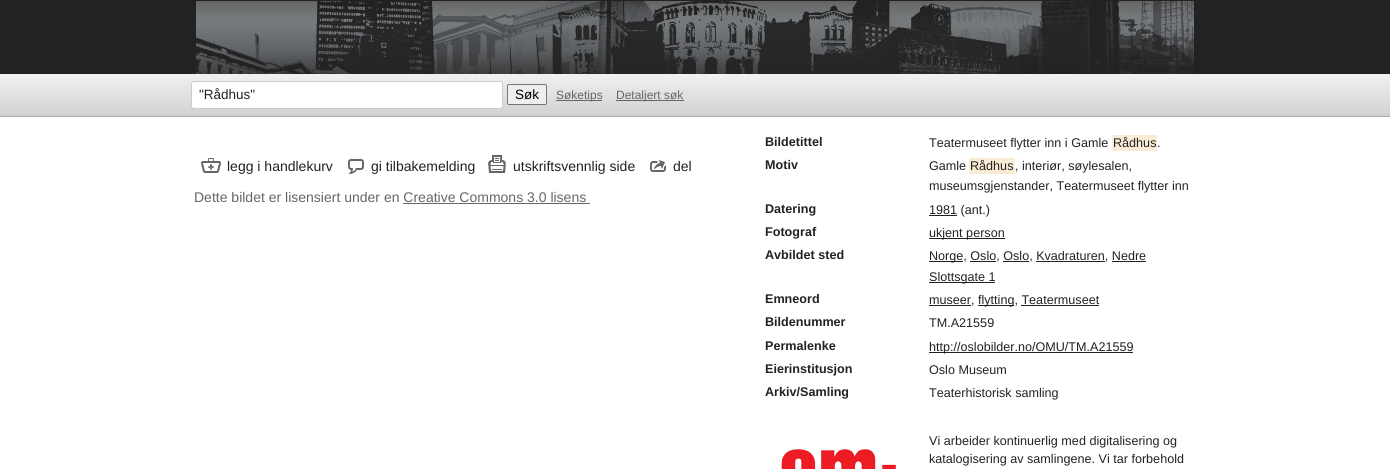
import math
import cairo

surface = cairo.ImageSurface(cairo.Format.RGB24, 1390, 469)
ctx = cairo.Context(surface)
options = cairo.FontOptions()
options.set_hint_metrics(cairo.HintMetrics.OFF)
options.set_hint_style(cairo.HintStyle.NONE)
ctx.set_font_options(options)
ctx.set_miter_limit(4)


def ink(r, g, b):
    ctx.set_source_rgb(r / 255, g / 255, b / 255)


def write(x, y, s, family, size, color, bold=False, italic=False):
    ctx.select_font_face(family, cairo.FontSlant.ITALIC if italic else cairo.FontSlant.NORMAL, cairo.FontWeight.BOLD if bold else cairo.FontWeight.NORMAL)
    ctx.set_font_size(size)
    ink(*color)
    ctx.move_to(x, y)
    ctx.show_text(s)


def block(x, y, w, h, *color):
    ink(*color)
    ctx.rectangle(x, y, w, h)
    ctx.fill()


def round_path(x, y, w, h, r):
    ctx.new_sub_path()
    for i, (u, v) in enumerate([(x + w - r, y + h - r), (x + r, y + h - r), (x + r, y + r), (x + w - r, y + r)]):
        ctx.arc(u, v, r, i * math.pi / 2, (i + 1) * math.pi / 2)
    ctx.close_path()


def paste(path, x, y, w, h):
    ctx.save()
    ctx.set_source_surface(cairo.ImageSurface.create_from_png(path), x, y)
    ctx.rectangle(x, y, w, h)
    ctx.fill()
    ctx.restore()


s1 = dict(family="Liberation Sans", size=13.5, color=(34, 34, 34))
s2 = dict(family="Liberation Sans", size=13.5, color=(0, 0, 0))
s3 = dict(family="Liberation Sans", size=12, color=(102, 102, 102))
s4 = dict(family="Liberation Sans", size=14, color=(34, 34, 34))
s5 = dict(family="Liberation Sans", size=14, color=(102, 102, 102))
s6 = dict(family="Liberation Sans", size=12.6, color=(34, 34, 34), bold=True)
s7 = dict(family="Liberation Sans", size=12.6, color=(34, 34, 34))

ink(255, 255, 255)
ctx.paint()
block(0, 0, 1390, 74, 34, 34, 34)
paste("pic1.png", 196, 1, 998, 73)
gradient = cairo.LinearGradient(695, 74, 695, 116)
gradient.add_color_stop_rgba(0, 0.945, 0.945, 0.945, 1)
gradient.add_color_stop_rgba(1, 0.82, 0.82, 0.82, 1)
ctx.set_source(gradient)
ctx.rectangle(0, 74, 1390, 42)
ctx.fill()
block(0, 116, 1390, 1, 170, 170, 170)
ink(255, 255, 255)
round_path(191.5, 81.5, 311, 27, 2.5)
ctx.fill_preserve()
ink(204, 204, 204)
ctx.set_line_width(1)
ctx.stroke()
write(199, 99, "\"Rådhus\"", **s1)
ink(239, 239, 239)
round_path(507.5, 84.5, 39, 20, 1.5)
ctx.fill_preserve()
ink(118, 118, 118)
ctx.stroke()
write(515, 99, "Søk", **s2)
block(556, 100, 46, 1, 102, 102, 102)
write(556, 99, "Søketips", **s3)
block(616, 100, 68, 1, 102, 102, 102)
write(616, 99, "Detaljert søk", **s3)
paste("pic2.png", 201, 158, 20, 15)
write(227, 171, "legg i handlekurv", **s4)
paste("pic3.png", 348, 159, 16, 15)
write(371, 171, "gi tilbakemelding", **s4)
paste("pic4.png", 488, 155, 18, 18)
write(513, 171, "utskriftsvennlig side", **s4)
paste("pic5.png", 650, 160, 16, 12)
write(673, 171, "del", **s4)
write(194, 202, "Dette bildet er lisensiert under en Creative Commons 3.0 lisens", **s5)
block(403, 203, 187, 1, 102, 102, 102)
write(765, 146, "Bildetittel", **s6)
write(929, 147, "Teatermuseet flytter inn i Gamle", **s7)
block(1112, 135, 45, 16, 250, 235, 215)
write(1113, 147, "Rådhus", **s7)
write(1157, 147, ".", **s7)
write(765, 169, "Motiv", **s6)
write(929, 170, "Gamle", **s7)
block(969, 158, 46, 16, 250, 235, 215)
write(970, 170, "Rådhus", **s7)
write(1015, 170, ", interiør, søylesalen,", **s7)
write(929, 190, "museumsgjenstander, Teatermuseet flytter inn", **s7)
write(765, 213, "Datering", **s6)
block(929, 215, 28, 1, 34, 34, 34)
write(929, 214, "1981 (ant.)", **s7)
write(765, 236, "Fotograf", **s6)
block(929, 238, 76, 1, 34, 34, 34)
write(929, 237, "ukjent person", **s7)
write(765, 259, "Avbildet sted", **s6)
block(929, 261, 34, 1, 34, 34, 34)
write(929, 260, "Norge, Oslo, Oslo, Kvadraturen, Nedre", **s7)
block(970, 261, 26, 1, 34, 34, 34)
block(1003, 261, 26, 1, 34, 34, 34)
block(1036, 261, 69, 1, 34, 34, 34)
block(929, 282, 66, 1, 34, 34, 34)
write(929, 281, "Slottsgate 1", **s7)
block(1112, 261, 34, 1, 34, 34, 34)
write(765, 303, "Emneord", **s6)
block(929, 305, 42, 1, 34, 34, 34)
write(929, 304, "museer,", **s7)
block(978, 305, 36, 1, 34, 34, 34)
write(978, 304, "flytting, Teatermuseet", **s7)
block(1021, 305, 78, 1, 34, 34, 34)
write(765, 326, "Bildenummer", **s6)
write(929, 327, "TM.A21559", **s7)
write(765, 350, "Permalenke", **s6)
block(929, 352, 204, 1, 34, 34, 34)
write(929, 351, "http://oslobilder.no/OMU/TM.A21559", **s7)
write(765, 373, "Eierinstitusjon", **s6)
write(929, 374, "Oslo Museum", **s7)
write(765, 396, "Arkiv/Samling", **s6)
write(929, 397, "Teaterhistorisk samling", **s7)
paste("pic6.png", 781, 449, 115, 20)
write(929, 445, "Vi arbeider kontinuerlig med digitalisering og", **s7)
write(929, 463, "katalogisering av samlingene. Vi tar forbehold", **s7)
surface.write_to_png("screenshot.png")
